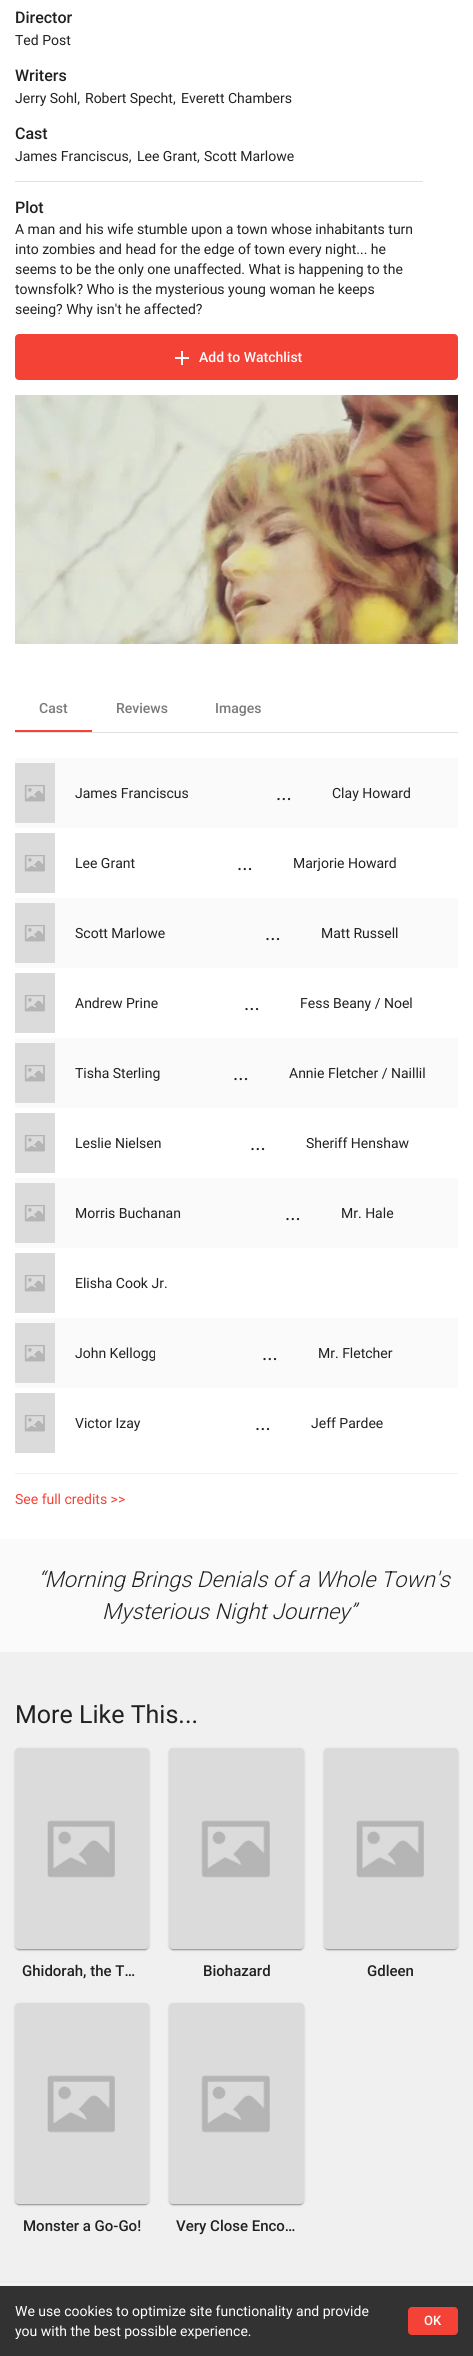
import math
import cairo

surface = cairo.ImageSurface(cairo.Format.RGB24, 473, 2356)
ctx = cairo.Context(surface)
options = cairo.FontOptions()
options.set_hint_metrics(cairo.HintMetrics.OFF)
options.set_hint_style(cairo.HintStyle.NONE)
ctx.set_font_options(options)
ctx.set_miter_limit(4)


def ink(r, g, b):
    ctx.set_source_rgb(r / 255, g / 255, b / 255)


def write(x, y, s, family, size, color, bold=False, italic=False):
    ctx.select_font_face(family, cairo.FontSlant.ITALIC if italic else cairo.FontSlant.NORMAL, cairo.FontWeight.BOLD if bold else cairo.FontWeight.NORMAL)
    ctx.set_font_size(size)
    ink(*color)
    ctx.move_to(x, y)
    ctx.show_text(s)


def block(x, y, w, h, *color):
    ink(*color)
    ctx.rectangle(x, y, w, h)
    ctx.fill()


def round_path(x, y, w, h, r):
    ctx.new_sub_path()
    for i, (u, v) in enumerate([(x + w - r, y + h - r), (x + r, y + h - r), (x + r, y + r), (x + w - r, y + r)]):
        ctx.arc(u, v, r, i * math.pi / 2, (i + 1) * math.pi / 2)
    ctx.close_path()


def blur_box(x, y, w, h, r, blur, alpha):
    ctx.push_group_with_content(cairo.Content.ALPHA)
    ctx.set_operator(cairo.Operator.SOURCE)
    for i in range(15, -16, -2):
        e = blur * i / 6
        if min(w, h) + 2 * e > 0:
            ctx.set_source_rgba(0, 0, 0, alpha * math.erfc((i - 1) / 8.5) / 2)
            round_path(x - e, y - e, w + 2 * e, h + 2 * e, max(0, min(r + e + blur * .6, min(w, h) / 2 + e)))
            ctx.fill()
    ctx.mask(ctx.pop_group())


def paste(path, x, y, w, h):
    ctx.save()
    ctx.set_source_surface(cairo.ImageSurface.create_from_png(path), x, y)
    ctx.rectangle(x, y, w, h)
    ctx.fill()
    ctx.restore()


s1 = dict(family="Roboto Medium", size=16, color=(33, 33, 33))
s2 = dict(family="Roboto", size=14, color=(33, 33, 33))
s3 = dict(family="Roboto Medium", size=14, color=(255, 255, 255))
s4 = dict(family="Roboto Medium", size=14, color=(122, 122, 122))
s5 = dict(family="Roboto", size=20, color=(33, 33, 33))
s6 = dict(family="Roboto", size=14, color=(244, 67, 54))
s7 = dict(family="Roboto Light", size=22, color=(33, 33, 33), italic=True)
s8 = dict(family="Roboto", size=25, color=(33, 33, 33))
s9 = dict(family="Roboto Medium", size=15, color=(33, 33, 33))
s10 = dict(family="Roboto", size=14, color=(255, 255, 255))
s11 = dict(family="Roboto Medium", size=13, color=(255, 255, 255))

ink(255, 255, 255)
ctx.paint()
write(15, 23, "Director", **s1)
write(15, 45, "Ted Post", **s2)
write(15, 81, "Writers", **s1)
write(15, 103, "Jerry Sohl,", **s2)
write(85, 103, "Robert Specht,", **s2)
write(181, 103, "Everett Chambers", **s2)
block(15, 181, 408, 1, 224, 224, 224)
write(15, 139, "Cast", **s1)
write(15, 161, "James Franciscus,", **s2)
write(137, 161, "Lee Grant,", **s2)
write(204, 161, "Scott Marlowe", **s2)
write(15, 213, "Plot", **s1)
write(15, 234, "A man and his wife stumble upon a town whose inhabitants turn", **s2)
write(15, 254, "into zombies and head for the edge of town every night... he", **s2)
write(15, 274, "seems to be the only one unaffected. What is happening to the", **s2)
write(15, 294, "townsfolk? Who is the mysterious young woman he keeps", **s2)
write(15, 314, "seeing? Why isn't he affected?", **s2)
ink(244, 67, 54)
round_path(15, 334, 443, 46, 4)
ctx.fill()
paste("pic1.png", 175, 351, 14, 14)
write(199, 362, "Add to Watchlist", **s3)
paste("pic2.png", 15, 395, 443, 249)
block(15, 732, 443, 1, 224, 224, 224)
write(39, 713, "Cast", **s4)
write(116, 713, "Reviews", **s4)
write(215, 713, "Images", **s4)
block(15, 730, 77, 2, 244, 67, 54)
block(15, 758, 443, 70, 250, 250, 250)
paste("pic3.png", 15, 763, 40, 60)
write(75, 798, "James Franciscus", **s2)
write(276, 800, "...", **s5)
write(332, 798, "Clay Howard", **s2)
paste("pic3.png", 15, 833, 40, 60)
write(75, 868, "Lee Grant", **s2)
write(237, 870, "...", **s5)
write(293, 868, "Marjorie Howard", **s2)
block(15, 898, 443, 70, 250, 250, 250)
paste("pic3.png", 15, 903, 40, 60)
write(75, 938, "Scott Marlowe", **s2)
write(265, 940, "...", **s5)
write(321, 938, "Matt Russell", **s2)
paste("pic3.png", 15, 973, 40, 60)
write(75, 1008, "Andrew Prine", **s2)
write(244, 1010, "...", **s5)
write(300, 1008, "Fess Beany / Noel", **s2)
block(15, 1038, 443, 70, 250, 250, 250)
paste("pic3.png", 15, 1043, 40, 60)
write(75, 1078, "Tisha Sterling", **s2)
write(233, 1080, "...", **s5)
write(289, 1078, "Annie Fletcher / Naillil", **s2)
paste("pic3.png", 15, 1113, 40, 60)
write(75, 1148, "Leslie Nielsen", **s2)
write(250, 1150, "...", **s5)
write(306, 1148, "Sheriff Henshaw", **s2)
block(15, 1178, 443, 70, 250, 250, 250)
paste("pic3.png", 15, 1183, 40, 60)
write(75, 1218, "Morris Buchanan", **s2)
write(285, 1220, "...", **s5)
write(341, 1218, "Mr. Hale", **s2)
paste("pic3.png", 15, 1253, 40, 60)
write(75, 1288, "Elisha Cook Jr.", **s2)
block(15, 1318, 443, 70, 250, 250, 250)
paste("pic3.png", 15, 1323, 40, 60)
write(75, 1358, "John Kellogg", **s2)
write(262, 1360, "...", **s5)
write(318, 1358, "Mr. Fletcher", **s2)
paste("pic3.png", 15, 1393, 40, 60)
write(75, 1428, "Victor Izay", **s2)
write(255, 1430, "...", **s5)
write(311, 1428, "Jeff Pardee", **s2)
block(15, 1473, 443, 1, 240, 240, 240)
write(15, 1504, "See full credits >>", **s6)
block(0, 1539, 473, 113, 250, 250, 250)
write(38, 1587, "“Morning Brings Denials of a Whole Town's", **s7)
write(102, 1619, "Mysterious Night Journey”", **s7)
block(0, 1652, 473, 631, 240, 240, 240)
write(15, 1723, "More Like This...", **s8)
ink(0, 0, 0)
blur_box(15, 1749, 134, 201, 4, 1.5, 0.12)
blur_box(15, 1749, 134, 201, 4, 0.5, 0.14)
blur_box(16, 1751, 132, 199, 3, 0.5, 0.2)
paste("pic4.png", 15, 1748, 134, 201)
write(22, 1976, "Ghidorah, the T…", **s9)
ink(0, 0, 0)
blur_box(169, 1749, 135, 201, 4, 1.5, 0.12)
blur_box(169, 1749, 135, 201, 4, 0.5, 0.14)
blur_box(170, 1751, 133, 199, 3, 0.5, 0.2)
paste("pic5.png", 169, 1748, 135, 201)
write(203, 1976, "Biohazard", **s9)
ink(0, 0, 0)
blur_box(324, 1749, 134, 201, 4, 1.5, 0.12)
blur_box(324, 1749, 134, 201, 4, 0.5, 0.14)
blur_box(325, 1751, 132, 199, 3, 0.5, 0.2)
paste("pic4.png", 324, 1748, 134, 201)
write(367, 1976, "Gdleen", **s9)
ink(0, 0, 0)
blur_box(15, 2004, 134, 201, 4, 1.5, 0.12)
blur_box(15, 2004, 134, 201, 4, 0.5, 0.14)
blur_box(16, 2006, 132, 199, 3, 0.5, 0.2)
paste("pic4.png", 15, 2003, 134, 201)
write(23, 2231, "Monster a Go-Go!", **s9)
ink(0, 0, 0)
blur_box(169, 2004, 135, 201, 4, 1.5, 0.12)
blur_box(169, 2004, 135, 201, 4, 0.5, 0.14)
blur_box(170, 2006, 133, 199, 3, 0.5, 0.2)
paste("pic5.png", 169, 2003, 135, 201)
write(176, 2231, "Very Close Enco…", **s9)
block(0, 2283, 473, 3, 250, 250, 250)
ink(0, 0, 0)
blur_box(0, 2287, 473, 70, 0, 4, 0.12)
block(0, 2286, 473, 70, 50, 50, 50)
write(15, 2316, "We use cookies to optimize site functionality and provide", **s10)
write(15, 2336, "you with the best possible experience.", **s10)
ink(244, 67, 54)
round_path(408, 2307, 50, 28, 4)
ctx.fill()
write(424, 2325, "OK", **s11)
surface.write_to_png("screenshot.png")
